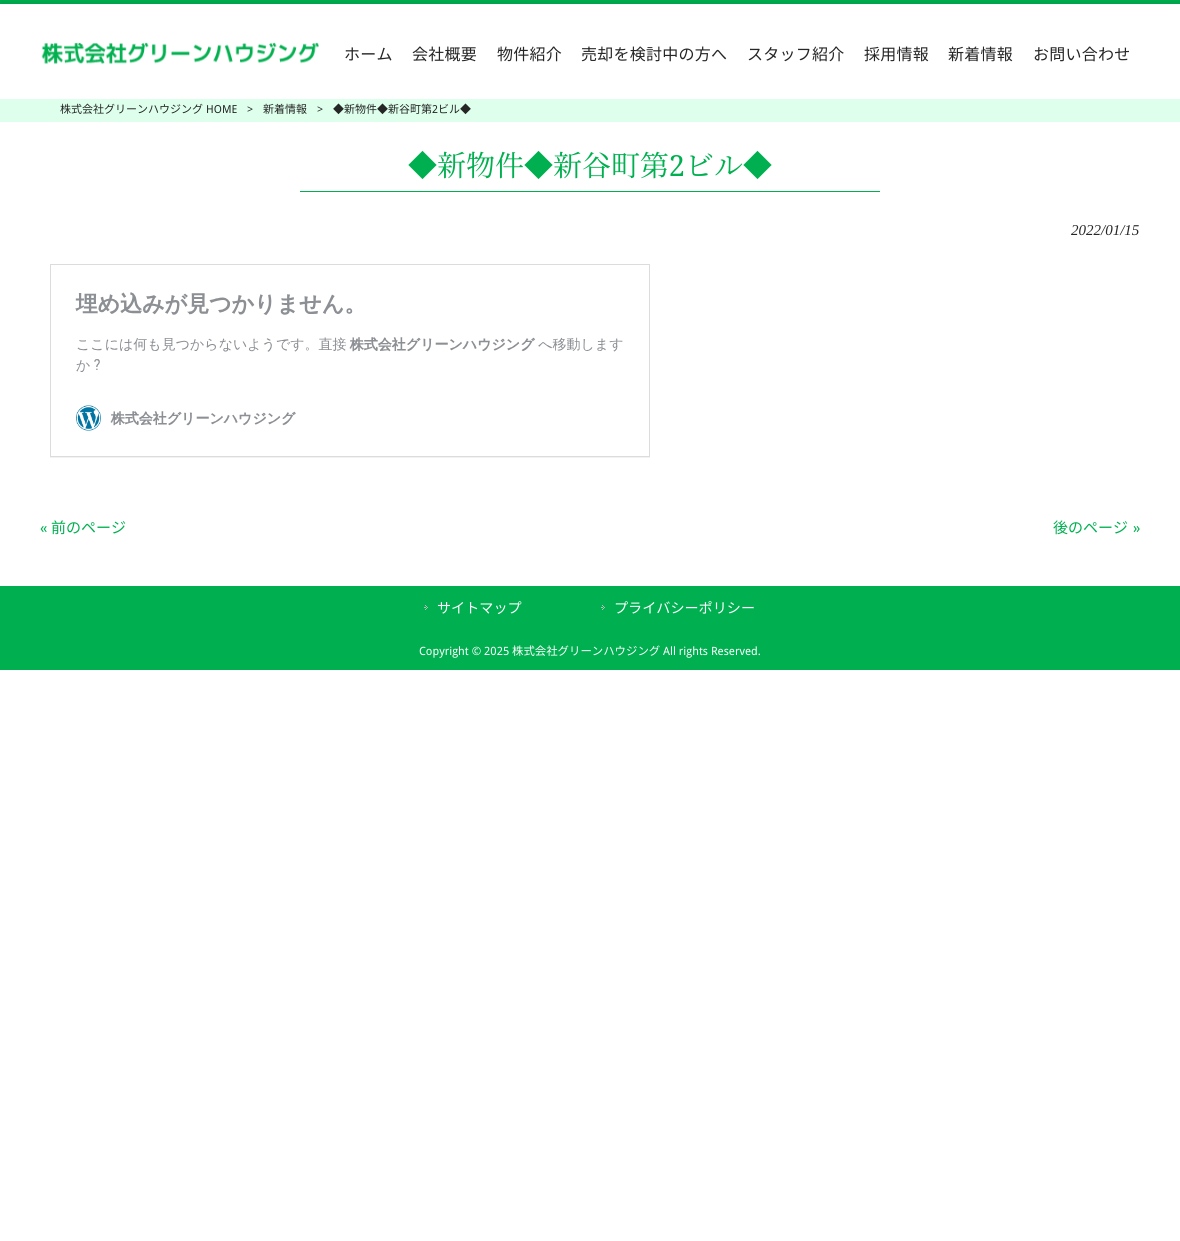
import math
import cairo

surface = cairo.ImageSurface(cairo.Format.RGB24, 1180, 1241)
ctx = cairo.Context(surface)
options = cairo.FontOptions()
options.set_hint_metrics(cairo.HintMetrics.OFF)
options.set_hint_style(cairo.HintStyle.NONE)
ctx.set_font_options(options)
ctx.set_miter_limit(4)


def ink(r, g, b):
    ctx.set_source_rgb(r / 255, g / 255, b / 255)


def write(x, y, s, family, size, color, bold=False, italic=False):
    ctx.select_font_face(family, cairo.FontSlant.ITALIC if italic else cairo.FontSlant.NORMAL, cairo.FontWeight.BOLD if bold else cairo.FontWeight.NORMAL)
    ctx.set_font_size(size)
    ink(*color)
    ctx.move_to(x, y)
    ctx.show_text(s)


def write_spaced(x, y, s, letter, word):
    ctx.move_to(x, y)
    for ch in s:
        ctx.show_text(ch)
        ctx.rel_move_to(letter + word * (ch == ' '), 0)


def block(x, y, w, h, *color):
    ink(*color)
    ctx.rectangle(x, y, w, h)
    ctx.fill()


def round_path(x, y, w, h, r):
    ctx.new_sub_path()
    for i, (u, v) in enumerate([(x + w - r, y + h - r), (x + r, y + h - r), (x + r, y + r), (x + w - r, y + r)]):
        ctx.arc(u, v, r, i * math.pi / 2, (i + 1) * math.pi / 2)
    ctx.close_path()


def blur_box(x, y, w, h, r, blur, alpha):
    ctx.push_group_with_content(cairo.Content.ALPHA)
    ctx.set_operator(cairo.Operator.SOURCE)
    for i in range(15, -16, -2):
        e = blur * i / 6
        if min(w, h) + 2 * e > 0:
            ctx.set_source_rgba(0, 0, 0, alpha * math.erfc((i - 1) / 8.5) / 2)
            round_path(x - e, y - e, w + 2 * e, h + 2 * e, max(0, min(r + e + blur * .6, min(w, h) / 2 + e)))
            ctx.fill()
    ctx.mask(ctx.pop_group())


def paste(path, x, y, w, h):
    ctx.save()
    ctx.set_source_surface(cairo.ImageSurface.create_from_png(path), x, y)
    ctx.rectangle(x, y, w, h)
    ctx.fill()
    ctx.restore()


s1 = dict(family="Noto Sans JP Thin", size=11, color=(38, 38, 38))
s2 = dict(family="Droid Sans", size=11, color=(38, 38, 38))
s3 = dict(family="Noto Serif JP ExtraLight", size=29, color=(0, 176, 80))
s4 = dict(family="Droid Serif", size=29, color=(0, 176, 80))
s5 = dict(family="Liberation Serif", size=15, color=(38, 38, 38), italic=True)
s6 = dict(family="Droid Sans", size=15, color=(0, 176, 80))
s7 = dict(family="Noto Sans JP Thin", size=15, color=(0, 176, 80))
s8 = dict(family="Noto Sans JP Thin", size=14.1, color=(255, 255, 255))
s9 = dict(family="Droid Sans", size=11.4, color=(255, 255, 255))
s10 = dict(family="Noto Sans JP Thin", size=11.4, color=(255, 255, 255))

ink(255, 255, 255)
ctx.paint()
block(0, 0, 1180, 4, 0, 176, 80)
ctx.save()
ctx.rectangle(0, 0, 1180, 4)
ctx.clip()
ink(0, 0, 0)
blur_box(1, 5, 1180, 95, 0, 5, 0.2)
ctx.restore()
paste("pic1.png", 41, 42, 278, 22)
ctx.select_font_face("Noto Sans JP Thin")
ctx.set_font_size(16)
ink(38, 38, 38)
write_spaced(344, 60, "ホーム", 0.25, 0)
write_spaced(412, 60, "会社概要", 0.25, 0)
write_spaced(497, 60, "物件紹介", 0.25, 0)
write_spaced(581, 60, "売却を検討中の方へ", 0.25, 0)
write_spaced(747, 60, "スタッフ紹介", 0.25, 0)
write_spaced(864, 60, "採用情報", 0.25, 0)
write_spaced(948, 60, "新着情報", 0.25, 0)
write_spaced(1033, 60, "お問い合わせ", 0.25, 0)
block(0, 99, 1180, 23, 221, 255, 236)
write(60, 113, "株式会社グリーンハウジング", **s1)
write(206, 113, "HOME", **s2)
write(247, 113, ">", **s2)
write(263, 113, "新着情報", **s1)
write(317, 113, ">", **s2)
write(333, 113, "◆新物件◆新谷町第", **s1)
write(432, 113, "2", **s2)
write(438, 113, "ビル◆", **s1)
write(408, 176, "◆新物件◆新谷町第", **s3)
write(669, 176, "2", **s4)
write(685, 176, "ビル◆", **s3)
block(300, 191, 580, 1, 0, 176, 80)
write(1071, 235, "2022/01/15", **s5)
paste("pic2.png", 50, 264, 600, 194)
write(40, 533, "«", **s6)
write(51, 533, "前のページ", **s7)
write(1053, 533, "後のページ", **s7)
write(1133, 533, "»", **s6)
block(0, 586, 1180, 84, 0, 176, 80)
paste("pic3.png", 424, 605, 4, 5)
write(437, 613, "サイトマップ", **s8)
paste("pic3.png", 601, 605, 4, 5)
write(614, 613, "プライバシーポリシー", **s8)
write(419, 655, "Copyright © 2025", **s9)
write(512, 655, "株式会社グリーンハウジング", **s10)
write(663, 655, "All rights Reserved.", **s9)
surface.write_to_png("screenshot.png")
